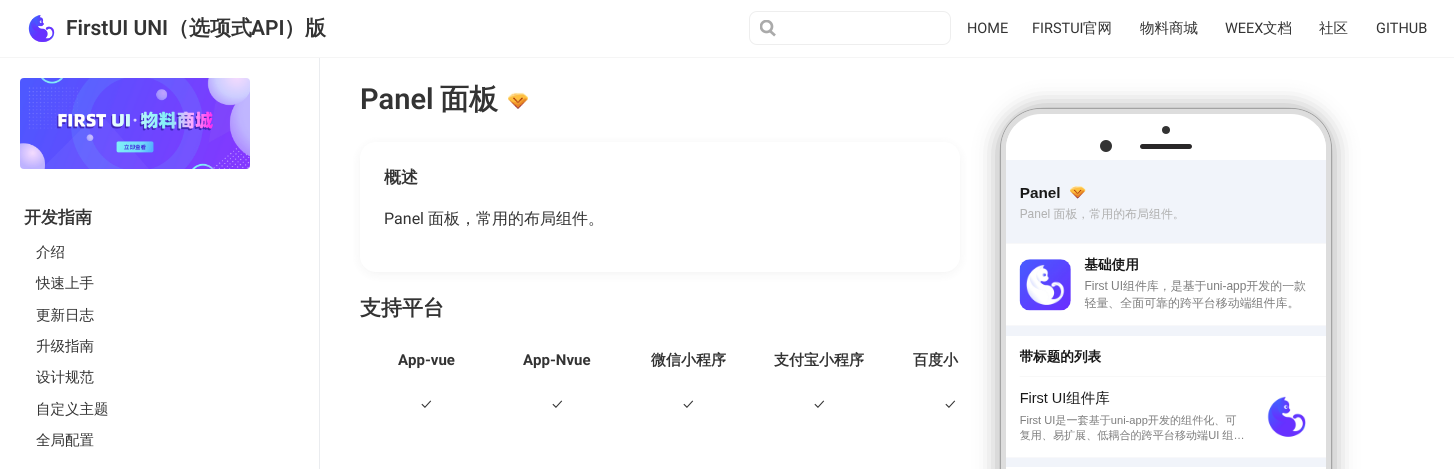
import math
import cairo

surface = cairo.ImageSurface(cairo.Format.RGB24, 1454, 469)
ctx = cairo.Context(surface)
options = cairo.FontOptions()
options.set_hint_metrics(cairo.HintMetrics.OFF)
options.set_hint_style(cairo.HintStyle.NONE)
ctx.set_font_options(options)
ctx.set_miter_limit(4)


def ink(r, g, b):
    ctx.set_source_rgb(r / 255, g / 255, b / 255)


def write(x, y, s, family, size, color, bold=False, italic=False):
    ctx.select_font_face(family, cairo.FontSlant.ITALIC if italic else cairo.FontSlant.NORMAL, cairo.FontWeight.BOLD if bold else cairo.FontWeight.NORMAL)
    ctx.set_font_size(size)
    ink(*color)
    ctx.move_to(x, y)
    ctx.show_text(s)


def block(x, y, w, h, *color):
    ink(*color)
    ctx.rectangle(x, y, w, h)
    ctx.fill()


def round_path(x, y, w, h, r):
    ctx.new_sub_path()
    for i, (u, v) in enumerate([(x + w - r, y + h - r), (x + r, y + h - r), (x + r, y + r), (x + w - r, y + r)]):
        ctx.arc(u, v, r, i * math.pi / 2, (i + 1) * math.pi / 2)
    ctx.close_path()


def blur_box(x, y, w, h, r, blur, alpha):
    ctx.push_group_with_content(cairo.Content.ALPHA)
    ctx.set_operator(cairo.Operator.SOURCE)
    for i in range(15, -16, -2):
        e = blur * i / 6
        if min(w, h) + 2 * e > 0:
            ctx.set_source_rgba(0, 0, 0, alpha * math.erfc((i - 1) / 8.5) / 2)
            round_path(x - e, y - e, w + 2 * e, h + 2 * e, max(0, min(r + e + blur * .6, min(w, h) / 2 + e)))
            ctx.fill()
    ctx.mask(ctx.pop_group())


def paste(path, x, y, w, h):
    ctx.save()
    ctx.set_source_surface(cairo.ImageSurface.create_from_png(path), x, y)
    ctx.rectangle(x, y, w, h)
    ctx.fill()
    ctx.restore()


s1 = dict(family="Roboto SemiBold", size=21, color=(51, 51, 51))
s2 = dict(family="WenQuanYi Zen Hei", size=21, color=(51, 51, 51), bold=True)
s3 = dict(family="Roboto", size=14.5, color=(51, 51, 51))
s4 = dict(family="WenQuanYi Zen Hei Medium", size=14.5, color=(51, 51, 51))
s5 = dict(family="WenQuanYi Zen Hei", size=17, color=(51, 51, 51), bold=True)
s6 = dict(family="Roboto SemiBold", size=29, color=(51, 51, 51))
s7 = dict(family="WenQuanYi Zen Hei", size=29, color=(51, 51, 51), bold=True)
s8 = dict(family="Roboto", size=16, color=(51, 51, 51))
s9 = dict(family="WenQuanYi Zen Hei Medium", size=16, color=(51, 51, 51))
s10 = dict(family="Roboto", size=15, color=(51, 51, 51), bold=True)
s11 = dict(family="WenQuanYi Zen Hei", size=15, color=(51, 51, 51), bold=True)
s12 = dict(family="Ubuntu", size=15, color=(51, 51, 51))

ink(255, 255, 255)
ctx.paint()
block(0, 57, 1454, 1, 245, 245, 245)
paste("pic1.png", 28, 15, 27, 27)
write(66, 35, "FirstUI UNI", **s1)
write(168, 35, "（选项式", **s2)
write(251, 35, "API", **s1)
write(284, 35, "）版", **s2)
ctx.new_path()
ctx.move_to(775, 35.5)
ctx.line_to(769.5, 30.5)
ink(170, 170, 170)
ctx.set_line_width(2.7)
ctx.stroke()
ctx.save()
ctx.rectangle(760, 20, 16, 18)
ctx.clip()
ctx.arc(766.5, 26.5, 5.5, 0, 2 * math.pi)
ctx.stroke()
ctx.restore()
round_path(749.5, 11.5, 201, 33, 7.5)
ink(238, 238, 238)
ctx.set_line_width(1)
ctx.stroke()
write(967, 33, "HOME", **s3)
write(1032, 33, "FIRSTUI", **s3)
write(1083, 33, "官网", **s4)
write(1140, 33, "物料商城", **s4)
write(1225, 33, "WEEX", **s3)
write(1263, 33, "文档", **s4)
write(1319, 33, "社区", **s4)
write(1376, 33, "GITHUB", **s3)
block(319, 58, 1, 411, 234, 236, 239)
paste("pic2.png", 20, 78, 230, 91)
write(24, 223, "开发指南", **s5)
write(36, 257, "介绍", **s4)
write(36, 288, "快速上手", **s4)
write(36, 320, "更新日志", **s4)
write(36, 351, "升级指南", **s4)
write(36, 382, "设计规范", **s4)
write(36, 414, "自定义主题", **s4)
write(36, 445, "全局配置", **s4)
write(360, 109, "Panel", **s6)
write(440, 109, "面板", **s7)
paste("pic3.png", 508, 92, 20, 17)
ink(0, 0, 0)
blur_box(1001, 109, 330, 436, 40, 12, 0.4)
round_path(1000.4, 108.4, 331.2, 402.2, 40.6)
ink(153, 153, 153)
ctx.set_line_width(0.8)
ctx.stroke()
ink(255, 255, 255)
round_path(1003.5, 111.5, 325, 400, 37.5)
ctx.fill_preserve()
ink(221, 221, 221)
ctx.set_line_width(5)
ctx.stroke()
ctx.save()
round_path(1006, 114, 320, 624, 35)
ctx.clip()
block(1006, 126, 320, 34, 255, 255, 255)
ctx.restore()
ink(51, 51, 51)
ctx.arc(1166, 130, 4, 0, 2 * math.pi)
ctx.fill()
ctx.arc(1106, 146, 6, 0, 2 * math.pi)
ctx.fill()
ink(41, 39, 40)
round_path(1140, 144, 52, 5, 2.5)
ctx.fill()
paste("pic4.png", 1006, 160, 320, 307)
ink(0, 0, 0)
blur_box(360, 144, 600, 130, 16, 5, 0.05)
ink(255, 255, 255)
round_path(360, 142, 600, 130, 16)
ctx.fill()
write(384, 183, "概述", **s5)
write(384, 224, "Panel", **s8)
write(428, 224, "面板，常用的布局组件。", **s9)
write(360, 315, "支持平台", **s2)
write(398, 365, "App-vue", **s10)
write(523, 365, "App-Nvue", **s10)
write(651, 365, "微信小程序", **s11)
write(774, 365, "支付宝小程序", **s11)
write(913, 365, "百度小", **s11)
write(421, 409, "✓", **s12)
write(552, 409, "✓", **s12)
write(683, 409, "✓", **s12)
write(814, 409, "✓", **s12)
write(945, 409, "✓", **s12)
surface.write_to_png("screenshot.png")
